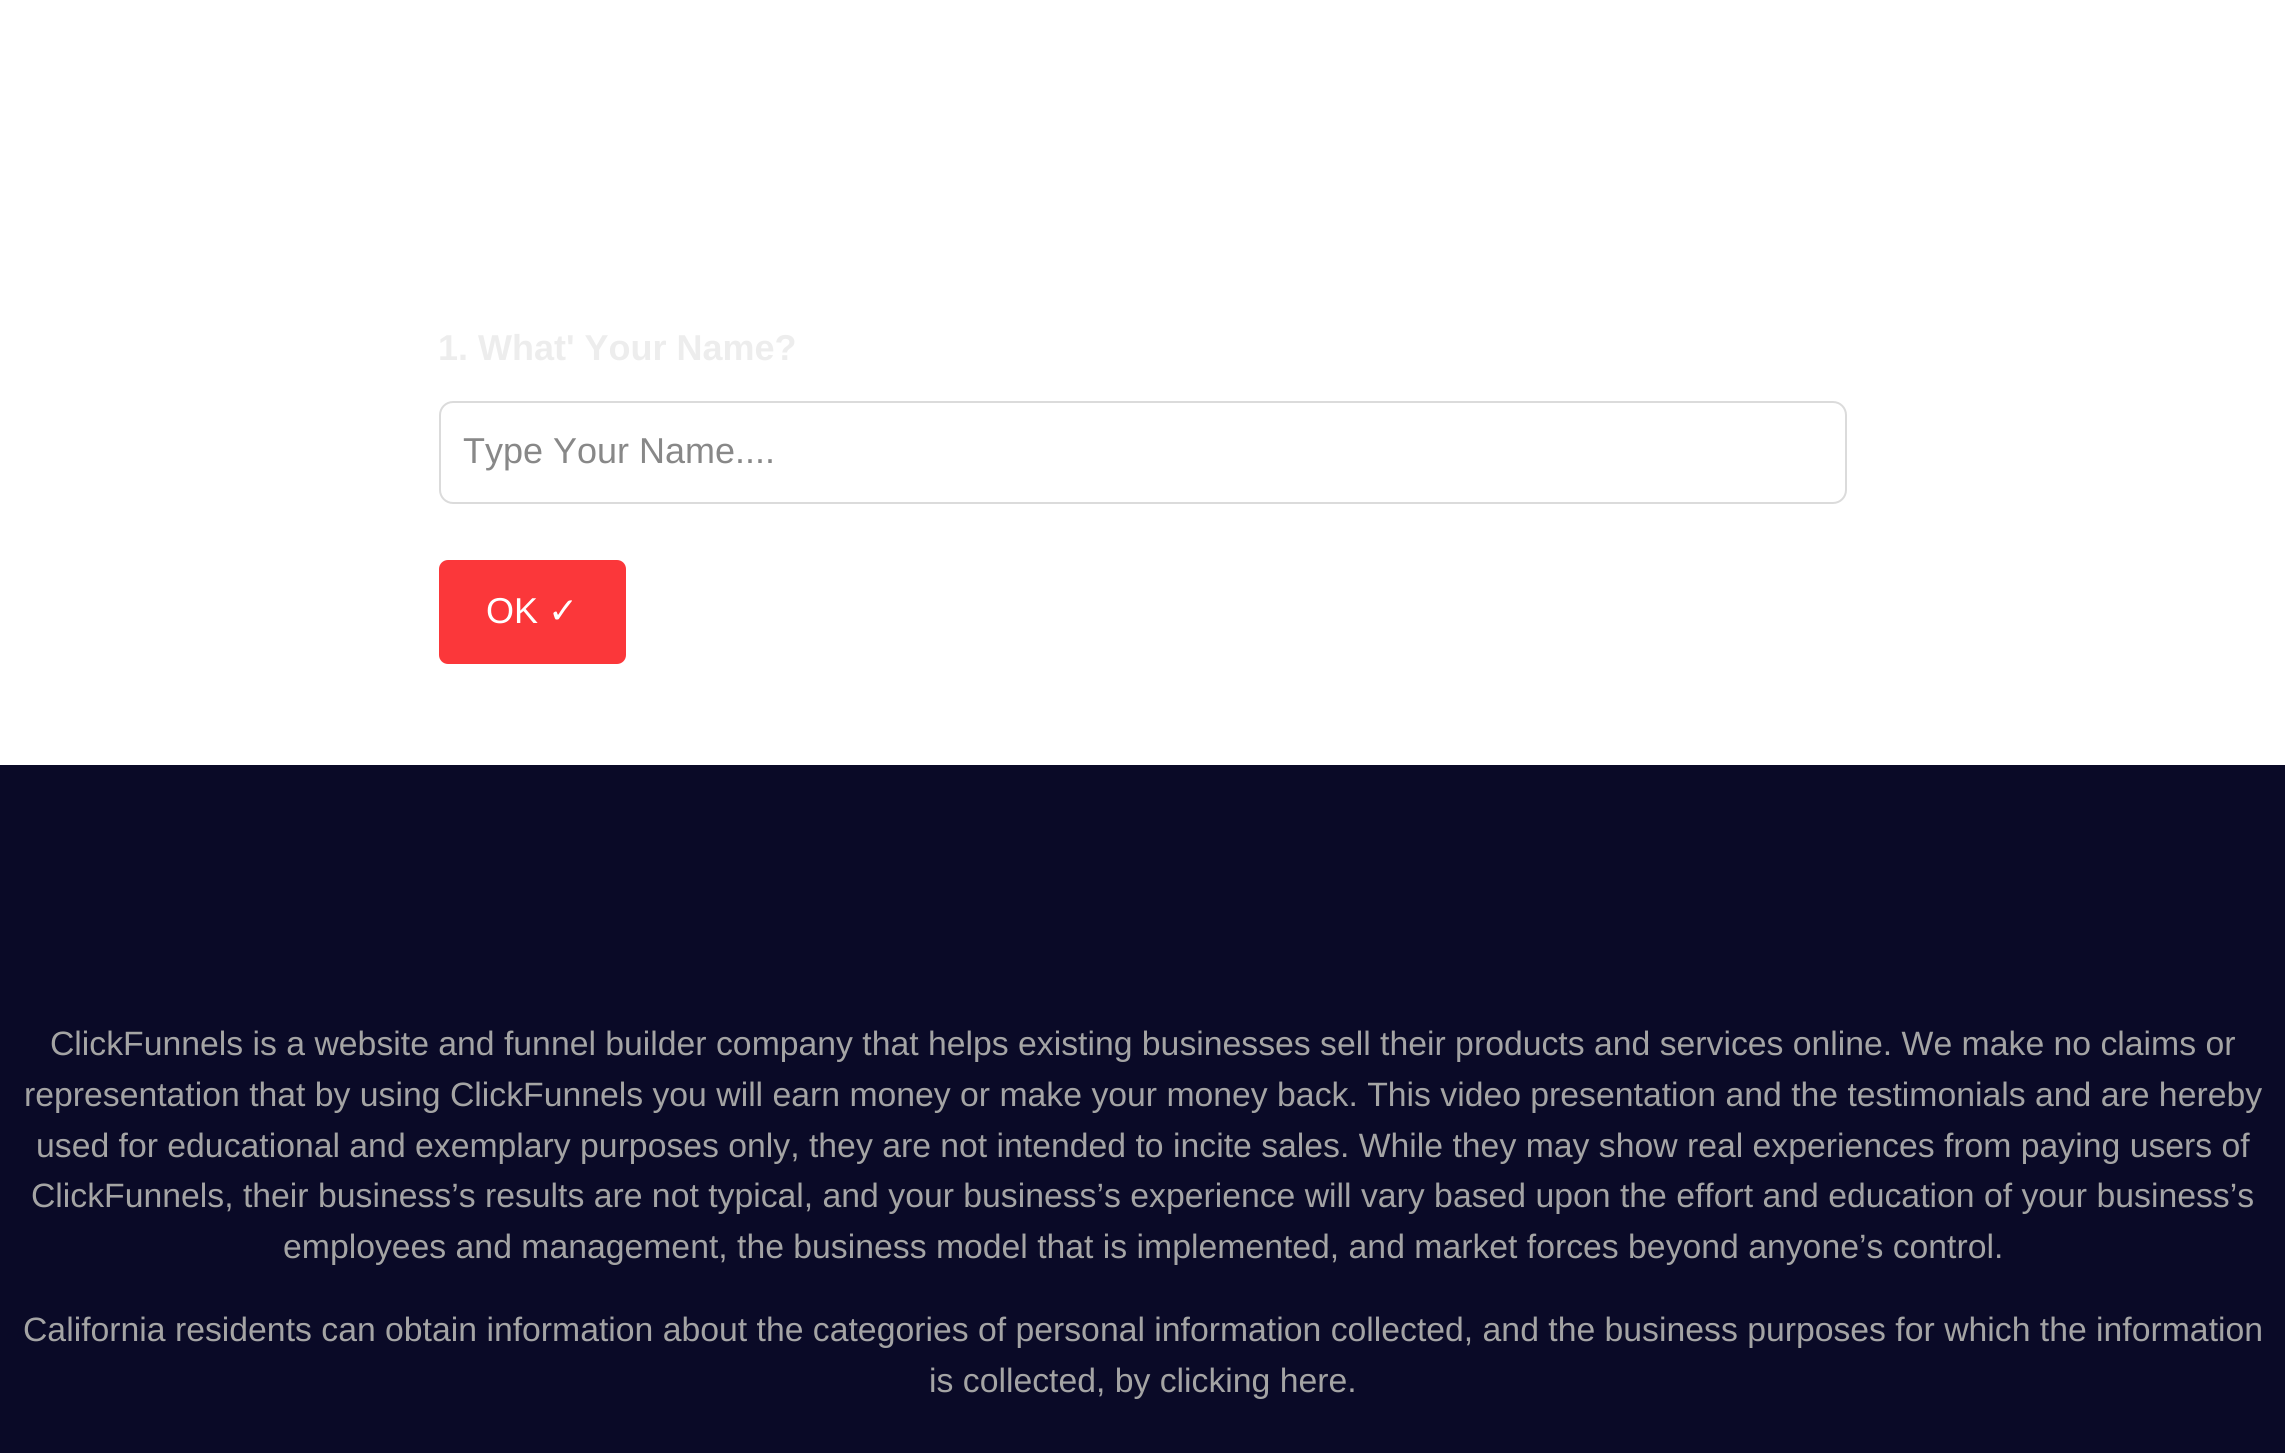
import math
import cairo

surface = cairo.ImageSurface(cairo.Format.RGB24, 2285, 1453)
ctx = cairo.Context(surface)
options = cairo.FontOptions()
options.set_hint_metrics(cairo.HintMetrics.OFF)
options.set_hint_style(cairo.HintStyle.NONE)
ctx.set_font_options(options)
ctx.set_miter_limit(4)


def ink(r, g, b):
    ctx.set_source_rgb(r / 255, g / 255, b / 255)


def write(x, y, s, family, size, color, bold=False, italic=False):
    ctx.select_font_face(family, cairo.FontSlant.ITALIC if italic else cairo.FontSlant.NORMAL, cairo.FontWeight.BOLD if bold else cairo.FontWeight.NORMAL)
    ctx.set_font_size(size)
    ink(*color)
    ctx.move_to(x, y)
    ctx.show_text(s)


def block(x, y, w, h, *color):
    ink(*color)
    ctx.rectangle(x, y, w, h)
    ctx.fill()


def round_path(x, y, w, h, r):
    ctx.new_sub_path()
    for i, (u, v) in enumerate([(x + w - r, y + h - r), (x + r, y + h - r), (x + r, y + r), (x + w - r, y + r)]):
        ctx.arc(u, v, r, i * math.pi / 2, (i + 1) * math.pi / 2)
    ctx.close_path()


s1 = dict(family="Liberation Sans", size=36, color=(237, 237, 237), bold=True)
s2 = dict(family="Liberation Sans", size=36, color=(136, 136, 136))
s3 = dict(family="Liberation Sans", size=36, color=(255, 255, 255))
s4 = dict(family="DejaVu Sans", size=36, color=(255, 255, 255))
s5 = dict(family="Liberation Sans", size=33.75, color=(164, 164, 164))

ink(255, 255, 255)
ctx.paint()
write(438, 360, "1. What' Your Name?", **s1)
round_path(440, 402, 1406, 101, 13)
ink(219, 219, 219)
ctx.stroke()
write(463, 463, "Type Your Name....", **s2)
ink(251, 55, 58)
round_path(439, 560, 187, 104, 9)
ctx.fill()
write(486, 623, "OK", **s3)
write(548, 623, "✓", **s4)
block(0, 765, 2285, 688, 10, 10, 39)
write(50, 1055, "ClickFunnels is a website and funnel builder company that helps existing businesses sell their products and services online. We make no claims or", **s5)
write(24, 1106, "representation that by using ClickFunnels you will earn money or make your money back. This video presentation and the testimonials and are hereby", **s5)
write(36, 1157, "used for educational and exemplary purposes only, they are not intended to incite sales. While they may show real experiences from paying users of", **s5)
write(31, 1207, "ClickFunnels, their business’s results are not typical, and your business’s experience will vary based upon the effort and education of your business’s", **s5)
write(283, 1258, "employees and management, the business model that is implemented, and market forces beyond anyone’s control.", **s5)
write(23, 1341, "California residents can obtain information about the categories of personal information collected, and the business purposes for which the information", **s5)
write(929, 1392, "is collected, by clicking here.", **s5)
surface.write_to_png("screenshot.png")
